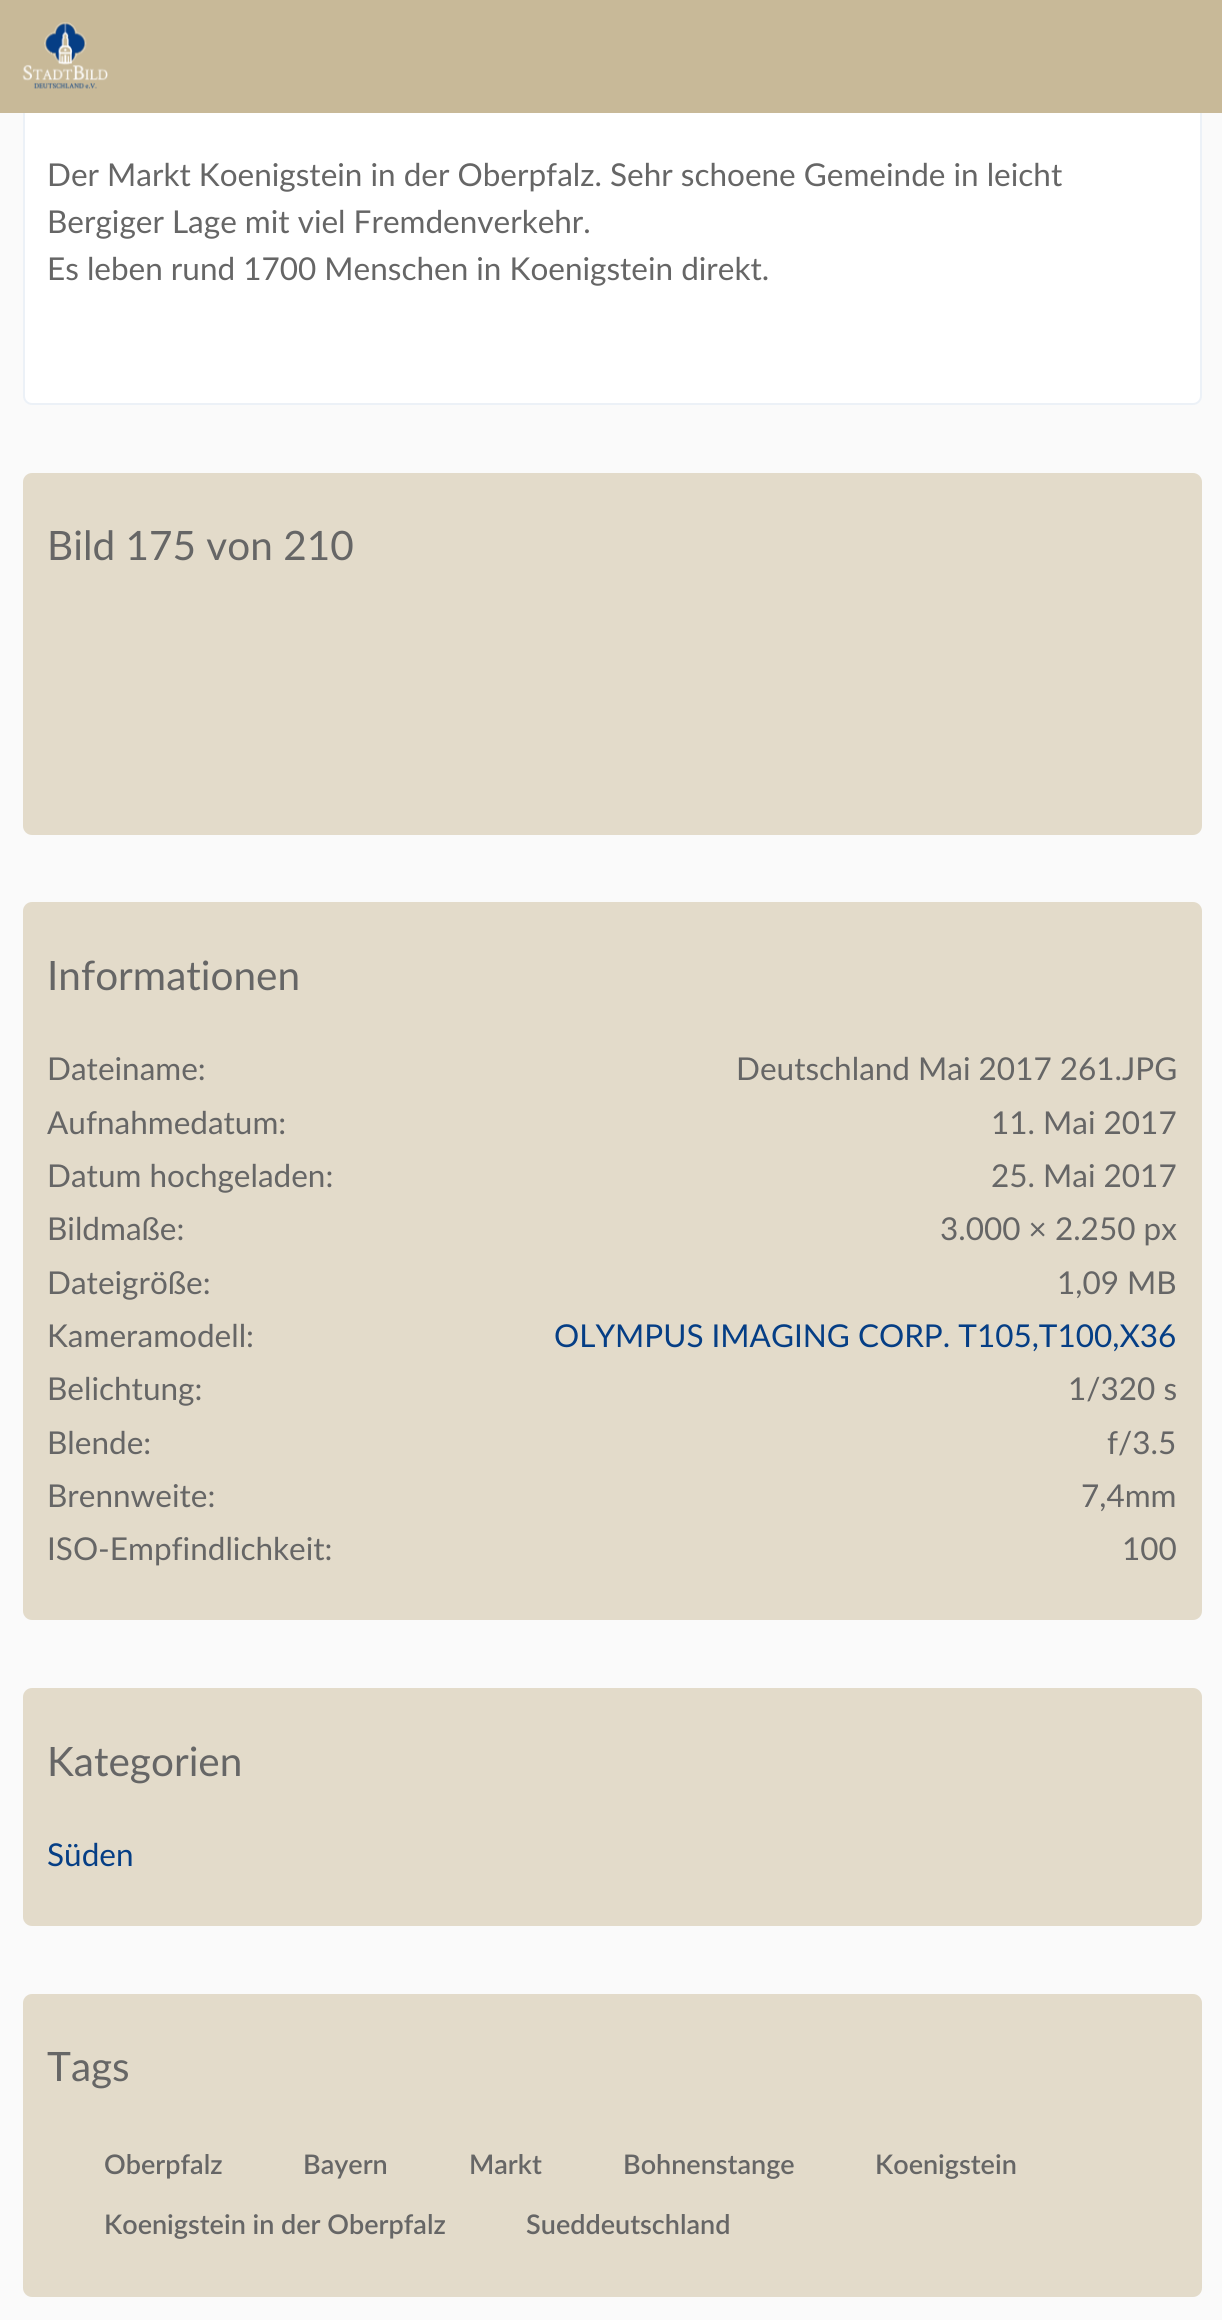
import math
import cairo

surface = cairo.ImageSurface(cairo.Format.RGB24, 1222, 2320)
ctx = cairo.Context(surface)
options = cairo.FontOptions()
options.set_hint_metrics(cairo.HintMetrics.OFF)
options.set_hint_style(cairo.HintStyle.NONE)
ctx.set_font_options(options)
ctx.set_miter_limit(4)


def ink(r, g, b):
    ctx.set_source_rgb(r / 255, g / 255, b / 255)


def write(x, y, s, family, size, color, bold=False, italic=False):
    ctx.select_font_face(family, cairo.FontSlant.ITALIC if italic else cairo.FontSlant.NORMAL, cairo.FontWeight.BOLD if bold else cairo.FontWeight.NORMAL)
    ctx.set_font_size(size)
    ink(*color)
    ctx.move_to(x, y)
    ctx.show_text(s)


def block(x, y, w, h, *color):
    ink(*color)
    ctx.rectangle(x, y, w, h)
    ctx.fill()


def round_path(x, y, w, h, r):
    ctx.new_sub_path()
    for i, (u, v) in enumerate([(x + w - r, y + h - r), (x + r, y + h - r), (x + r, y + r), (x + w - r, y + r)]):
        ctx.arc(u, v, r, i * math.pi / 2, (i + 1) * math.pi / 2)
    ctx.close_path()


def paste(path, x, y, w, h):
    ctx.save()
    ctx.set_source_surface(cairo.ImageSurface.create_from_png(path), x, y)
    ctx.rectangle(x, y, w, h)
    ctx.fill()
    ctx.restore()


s1 = dict(family="Lato", size=31.5, color=(102, 102, 102))
s2 = dict(family="Lato", size=40.5, color=(102, 102, 102))
s3 = dict(family="Lato", size=31.5, color=(5, 62, 133))
s4 = dict(family="Lato SemiBold", size=27, color=(102, 102, 102))

ink(250, 250, 250)
ctx.paint()
ink(255, 255, 255)
round_path(24, -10, 1177, 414, 8)
ctx.fill_preserve()
ink(236, 241, 247)
ctx.stroke()
block(0, 0, 1222, 113, 200, 185, 152)
paste("pic1.png", 22, 22, 86, 67)
write(47, 186, "Der Markt Koenigstein in der Oberpfalz. Sehr schoene Gemeinde in leicht", **s1)
write(47, 233, "Bergiger Lage mit viel Fremdenverkehr.", **s1)
write(47, 280, "Es leben rund 1700 Menschen in Koenigstein direkt.", **s1)
ink(227, 219, 202)
round_path(23, 473, 1179, 362, 9)
ctx.fill()
write(47, 560, "Bild 175 von 210", **s2)
ink(227, 219, 202)
round_path(23, 902, 1179, 718, 9)
ctx.fill()
write(47, 990, "Informationen", **s2)
write(47, 1080, "Dateiname:", **s1)
write(736, 1080, "Deutschland Mai 2017 261.JPG", **s1)
write(47, 1134, "Aufnahmedatum:", **s1)
write(991, 1134, "11. Mai 2017", **s1)
write(47, 1187, "Datum hochgeladen:", **s1)
write(991, 1187, "25. Mai 2017", **s1)
write(47, 1240, "Bildmaße:", **s1)
write(940, 1240, "3.000 × 2.250 px", **s1)
write(47, 1294, "Dateigröße:", **s1)
write(1057, 1294, "1,09 MB", **s1)
write(47, 1347, "Kameramodell:", **s1)
write(554, 1347, "OLYMPUS IMAGING CORP. T105,T100,X36", **s3)
write(47, 1400, "Belichtung:", **s1)
write(1068, 1400, "1/320 s", **s1)
write(47, 1454, "Blende:", **s1)
write(1107, 1454, "f/3.5", **s1)
write(47, 1507, "Brennweite:", **s1)
write(1081, 1507, "7,4mm", **s1)
write(47, 1560, "ISO-Empfindlichkeit:", **s1)
write(1122, 1560, "100", **s1)
ink(227, 219, 202)
round_path(23, 1688, 1179, 238, 9)
ctx.fill()
write(47, 1776, "Kategorien", **s2)
write(47, 1866, "Süden", **s3)
ink(227, 219, 202)
round_path(23, 1994, 1179, 303, 9)
ctx.fill()
write(47, 2081, "Tags", **s2)
write(104, 2174, "Oberpfalz", **s4)
write(303, 2174, "Bayern", **s4)
write(469, 2174, "Markt", **s4)
write(623, 2174, "Bohnenstange", **s4)
write(875, 2174, "Koenigstein", **s4)
write(104, 2234, "Koenigstein in der Oberpfalz", **s4)
write(526, 2234, "Sueddeutschland", **s4)
surface.write_to_png("screenshot.png")
